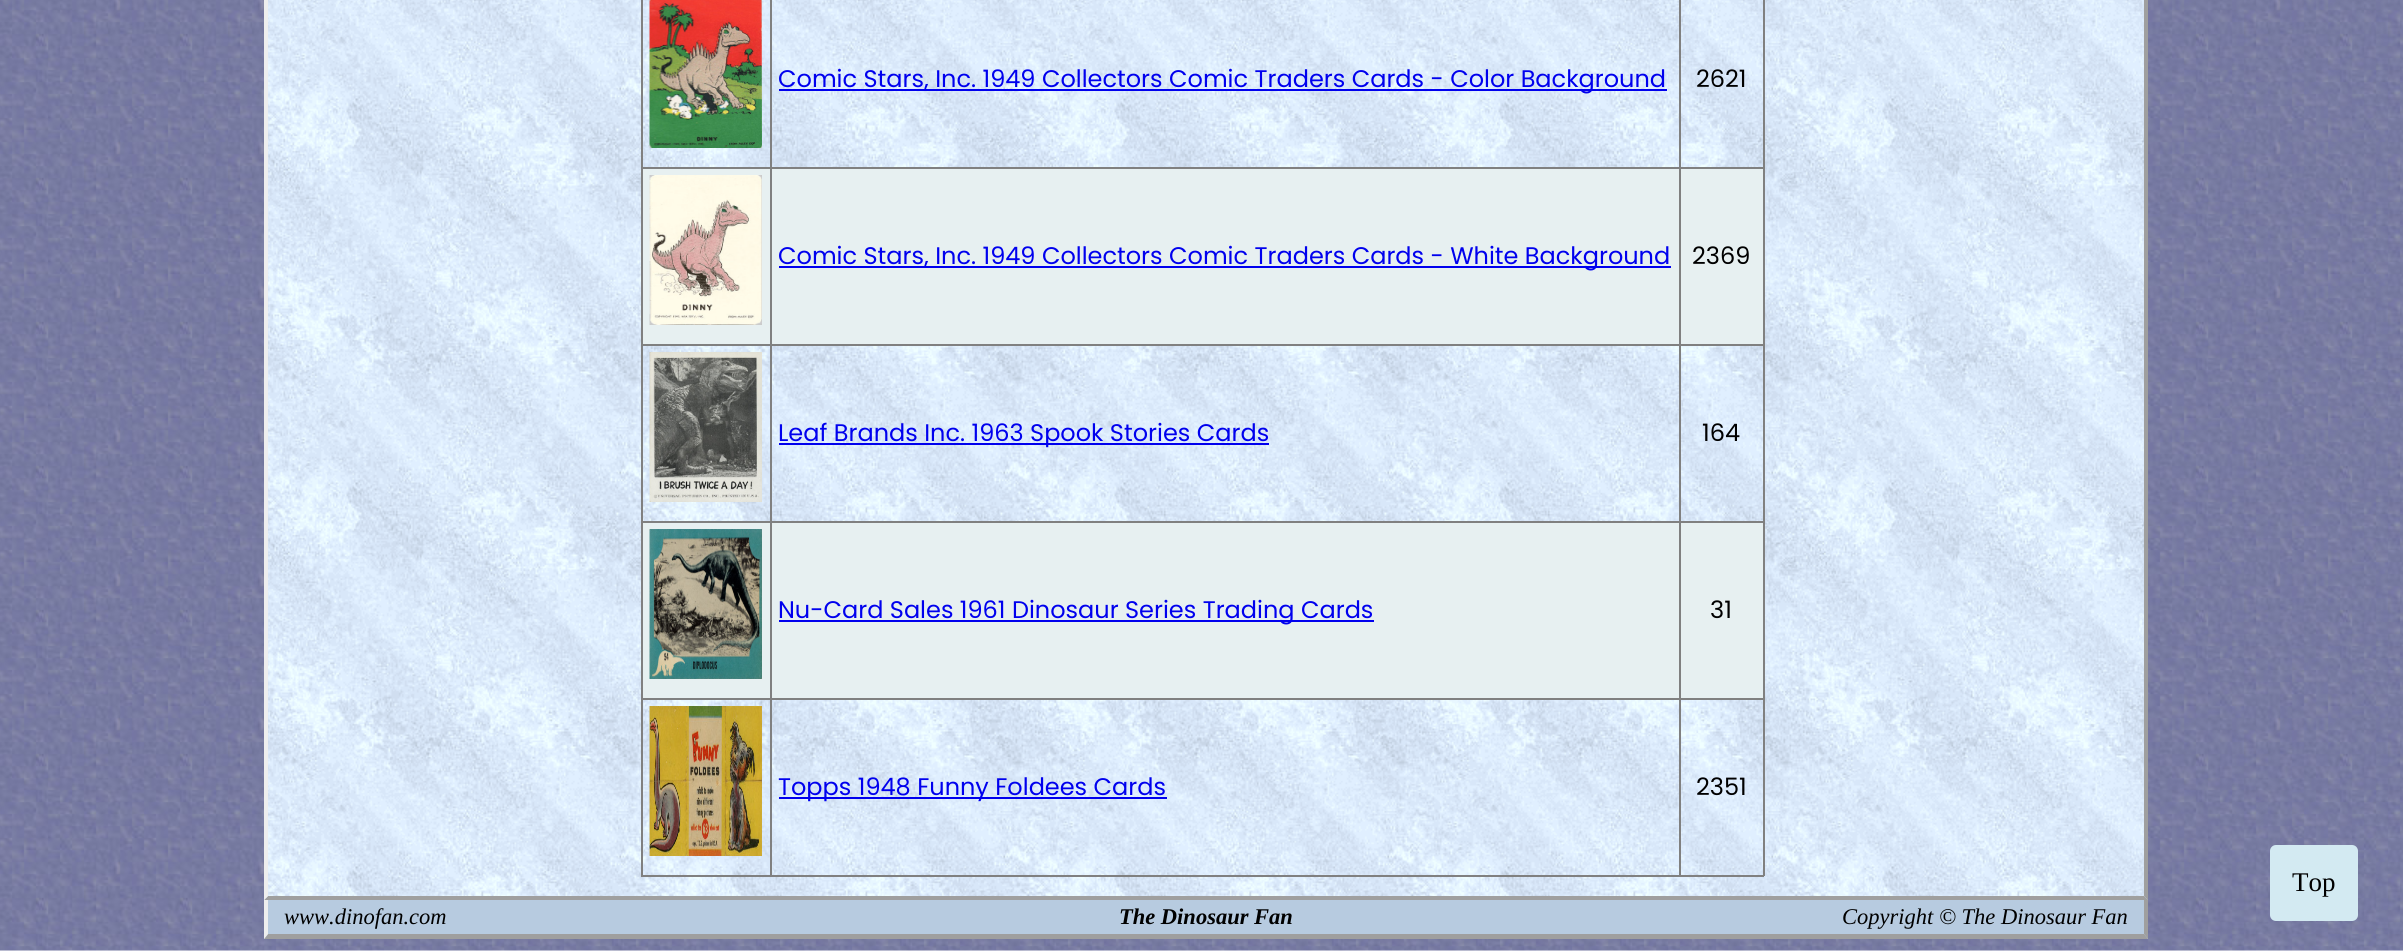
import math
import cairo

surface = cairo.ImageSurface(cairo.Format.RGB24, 2403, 951)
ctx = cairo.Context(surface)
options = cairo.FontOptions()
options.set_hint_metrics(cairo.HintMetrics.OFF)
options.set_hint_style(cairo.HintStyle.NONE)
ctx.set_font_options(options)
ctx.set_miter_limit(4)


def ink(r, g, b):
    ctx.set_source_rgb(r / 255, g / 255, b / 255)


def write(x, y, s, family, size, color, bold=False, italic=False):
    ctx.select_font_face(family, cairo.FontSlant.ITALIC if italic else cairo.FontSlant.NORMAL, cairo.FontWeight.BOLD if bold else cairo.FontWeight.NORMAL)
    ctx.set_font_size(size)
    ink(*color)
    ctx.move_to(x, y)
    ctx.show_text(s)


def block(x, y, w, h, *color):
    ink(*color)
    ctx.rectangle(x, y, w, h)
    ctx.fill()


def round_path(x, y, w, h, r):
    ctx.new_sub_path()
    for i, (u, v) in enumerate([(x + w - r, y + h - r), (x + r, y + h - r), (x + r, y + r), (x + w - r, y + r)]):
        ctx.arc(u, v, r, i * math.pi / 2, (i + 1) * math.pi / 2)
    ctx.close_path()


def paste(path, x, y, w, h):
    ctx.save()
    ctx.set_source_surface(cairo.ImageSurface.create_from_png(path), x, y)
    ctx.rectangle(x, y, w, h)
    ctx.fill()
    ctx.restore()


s1 = dict(family="Poppins", size=24, color=(0, 0, 238))
s2 = dict(family="Poppins", size=24, color=(0, 0, 0))
s3 = dict(family="Liberation Serif", size=22.5, color=(0, 0, 0), italic=True)
s4 = dict(family="Liberation Serif", size=22.5, color=(0, 0, 0), bold=True, italic=True)
s5 = dict(family="Liberation Serif", size=27, color=(0, 0, 0))

ink(255, 255, 255)
ctx.paint()
paste("pic1.png", 0, 0, 2403, 951)
block(264, 900, 1884, 39, 183, 203, 224)
ink(159, 159, 159)
ctx.new_path()
ctx.move_to(2148, -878)
ctx.line_to(2148, 939)
ctx.line_to(2144, 934)
ctx.line_to(2144, -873)
ctx.close_path()
ctx.fill()
ctx.new_path()
ctx.move_to(2148, 939)
ctx.line_to(264, 939)
ctx.line_to(268, 934)
ctx.line_to(2144, 934)
ctx.close_path()
ctx.fill()
ink(238, 238, 238)
ctx.new_path()
ctx.move_to(264, 939)
ctx.line_to(264, -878)
ctx.line_to(268, -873)
ctx.line_to(268, 934)
ctx.close_path()
ctx.fill()
paste("pic2.png", 264, 0, 1884, 900)
ink(159, 159, 159)
ctx.new_path()
ctx.move_to(2148, -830)
ctx.line_to(2148, 900)
ctx.line_to(2144, 896)
ctx.line_to(2144, -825)
ctx.close_path()
ctx.fill()
ctx.new_path()
ctx.move_to(2148, 900)
ctx.line_to(264, 900)
ctx.line_to(268, 896)
ctx.line_to(2144, 896)
ctx.close_path()
ctx.fill()
ink(238, 238, 238)
ctx.new_path()
ctx.move_to(264, 900)
ctx.line_to(264, -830)
ctx.line_to(268, -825)
ctx.line_to(268, 896)
ctx.close_path()
ctx.fill()
block(1763, 0, 2, 876, 128, 128, 128)
block(641, 875, 1123, 2, 128, 128, 128)
block(641, 0, 2, 876, 128, 128, 128)
paste("pic3.png", 649, 0, 113, 148)
block(1679, 167, 85, 2, 128, 128, 128)
block(643, 169, 1120, 175, 231, 240, 241)
block(1679, 344, 85, 2, 128, 128, 128)
block(1679, 521, 85, 2, 128, 128, 128)
block(643, 523, 1120, 175, 231, 240, 241)
block(1679, 698, 85, 2, 128, 128, 128)
block(1679, 698, 2, 178, 128, 128, 128)
block(770, 698, 910, 2, 128, 128, 128)
block(1679, 521, 2, 178, 128, 128, 128)
block(770, 521, 910, 2, 128, 128, 128)
block(1679, 344, 2, 178, 128, 128, 128)
block(770, 344, 910, 2, 128, 128, 128)
block(1679, 167, 2, 178, 128, 128, 128)
block(770, 167, 910, 2, 128, 128, 128)
block(770, 698, 2, 178, 128, 128, 128)
block(641, 698, 130, 2, 128, 128, 128)
block(770, 521, 2, 178, 128, 128, 128)
block(641, 521, 130, 2, 128, 128, 128)
block(770, 344, 2, 178, 128, 128, 128)
block(641, 344, 130, 2, 128, 128, 128)
block(770, 167, 2, 178, 128, 128, 128)
block(641, 167, 130, 2, 128, 128, 128)
block(770, 0, 2, 168, 128, 128, 128)
block(779, 89, 888, 2, 0, 0, 238)
write(778, 87, "Comic Stars, Inc. 1949 Collectors Comic Traders Cards - Color Background", **s1)
block(1679, 0, 2, 168, 128, 128, 128)
write(1696, 87, "2621", **s2)
paste("pic4.png", 649, 175, 113, 150)
block(779, 266, 892, 2, 0, 0, 238)
write(778, 264, "Comic Stars, Inc. 1949 Collectors Comic Traders Cards - White Background", **s1)
write(1692, 264, "2369", **s2)
paste("pic5.png", 649, 352, 113, 150)
block(779, 443, 490, 2, 0, 0, 238)
write(778, 441, "Leaf Brands Inc. 1963 Spook Stories Cards", **s1)
write(1702, 441, "164", **s2)
paste("pic6.png", 649, 529, 113, 150)
block(779, 620, 595, 2, 0, 0, 238)
write(778, 618, "Nu-Card Sales 1961 Dinosaur Series Trading Cards", **s1)
write(1710, 618, "31", **s2)
paste("pic7.png", 649, 706, 113, 150)
block(779, 797, 388, 2, 0, 0, 238)
write(778, 795, "Topps 1948 Funny Foldees Cards", **s1)
write(1696, 795, "2351", **s2)
write(284, 924, "www.dinofan.com", **s3)
write(1119, 924, "The Dinosaur Fan", **s4)
write(1842, 924, "Copyright © The Dinosaur Fan", **s3)
ink(211, 234, 242)
round_path(2270, 845, 88, 76, 6)
ctx.fill()
write(2292, 891, "Top", **s5)
surface.write_to_png("screenshot.png")
